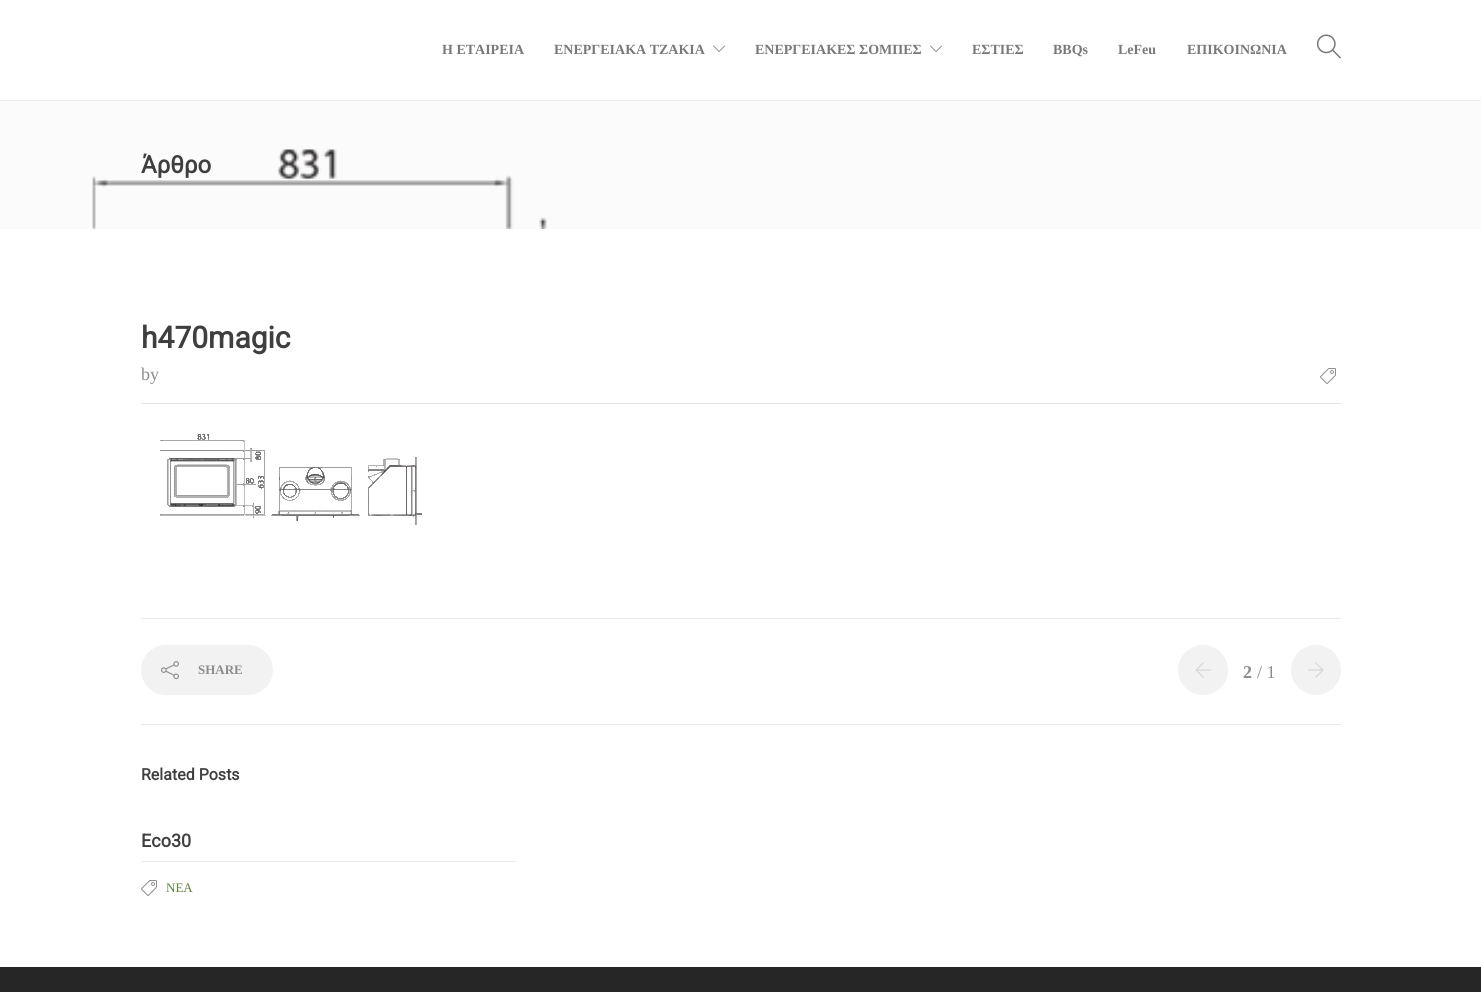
import math
import cairo

surface = cairo.ImageSurface(cairo.Format.RGB24, 1481, 992)
ctx = cairo.Context(surface)
options = cairo.FontOptions()
options.set_hint_metrics(cairo.HintMetrics.OFF)
options.set_hint_style(cairo.HintStyle.NONE)
ctx.set_font_options(options)
ctx.set_miter_limit(4)


def ink(r, g, b):
    ctx.set_source_rgb(r / 255, g / 255, b / 255)


def write(x, y, s, family, size, color, bold=False, italic=False):
    ctx.select_font_face(family, cairo.FontSlant.ITALIC if italic else cairo.FontSlant.NORMAL, cairo.FontWeight.BOLD if bold else cairo.FontWeight.NORMAL)
    ctx.set_font_size(size)
    ink(*color)
    ctx.move_to(x, y)
    ctx.show_text(s)


def block(x, y, w, h, *color):
    ink(*color)
    ctx.rectangle(x, y, w, h)
    ctx.fill()


def round_path(x, y, w, h, r):
    ctx.new_sub_path()
    for i, (u, v) in enumerate([(x + w - r, y + h - r), (x + r, y + h - r), (x + r, y + r), (x + w - r, y + r)]):
        ctx.arc(u, v, r, i * math.pi / 2, (i + 1) * math.pi / 2)
    ctx.close_path()


def paste(path, x, y, w, h):
    ctx.save()
    ctx.set_source_surface(cairo.ImageSurface.create_from_png(path), x, y)
    ctx.rectangle(x, y, w, h)
    ctx.fill()
    ctx.restore()


s1 = dict(family="Liberation Serif", size=14, color=(121, 121, 121), bold=True)
s2 = dict(family="Roboto", size=24, color=(63, 63, 63), bold=True)
s3 = dict(family="Roboto", size=30, color=(63, 63, 63), bold=True)
s4 = dict(family="Liberation Serif", size=18, color=(141, 141, 141))
s5 = dict(family="Liberation Serif", size=13, color=(141, 141, 141), bold=True)
s6 = dict(family="Liberation Serif", size=18, color=(141, 141, 141), bold=True)
s7 = dict(family="Roboto", size=16, color=(63, 63, 63), bold=True)
s8 = dict(family="Roboto", size=18, color=(63, 63, 63), bold=True)
s9 = dict(family="Liberation Serif", size=13, color=(93, 131, 64))

ink(255, 255, 255)
ctx.paint()
block(0, 100, 1481, 1, 235, 235, 235)
write(442, 54, "Η ΕΤΑΙΡΕΙΑ", **s1)
write(554, 54, "ΕΝΕΡΓΕΙΑΚΑ ΤΖΑΚΙΑ", **s1)
paste("pic1.png", 713, 45, 12, 7)
write(755, 54, "ΕΝΕΡΓΕΙΑΚΕΣ ΣΟΜΠΕΣ", **s1)
paste("pic1.png", 930, 45, 12, 7)
write(972, 54, "ΕΣΤΙΕΣ", **s1)
write(1053, 54, "BBQs", **s1)
write(1118, 54, "LeFeu", **s1)
write(1187, 54, "ΕΠΙΚΟΙΝΩΝΙΑ", **s1)
paste("pic2.png", 1316, 34, 25, 25)
block(0, 101, 1481, 128, 251, 251, 251)
paste("pic3.png", 92, 149, 455, 80)
write(141, 173, "Άρθρο", **s2)
write(141, 348, "h470magic", **s3)
block(141, 403, 1200, 1, 229, 229, 229)
write(141, 380, "by", **s4)
paste("pic4.png", 1320, 368, 16, 16)
paste("pic5.png", 160, 434, 262, 91)
block(141, 618, 1200, 1, 234, 234, 234)
block(141, 724, 1200, 1, 234, 234, 234)
ink(242, 242, 242)
round_path(141, 645, 132, 50, 25)
ctx.fill()
paste("pic6.png", 161, 661, 18, 19)
write(198, 674, "SHARE", **s5)
ink(242, 242, 242)
ctx.new_path()
ctx.arc(1203, 670, 25, 0, 2 * math.pi)
ctx.fill()
paste("pic7.png", 1195, 662, 16, 16)
write(1243, 678, "2", **s6)
write(1257, 678, "/ 1", **s4)
ink(242, 242, 242)
ctx.new_path()
ctx.arc(1316, 670, 25, 0, 2 * math.pi)
ctx.fill()
paste("pic8.png", 1308, 662, 16, 16)
write(141, 780, "Related Posts", **s7)
write(141, 847, "Εco30", **s8)
block(141, 861, 375, 1, 233, 233, 233)
paste("pic4.png", 141, 880, 16, 16)
write(166, 892, "ΝΕΑ", **s9)
block(0, 967, 1481, 25, 38, 38, 38)
surface.write_to_png("screenshot.png")
